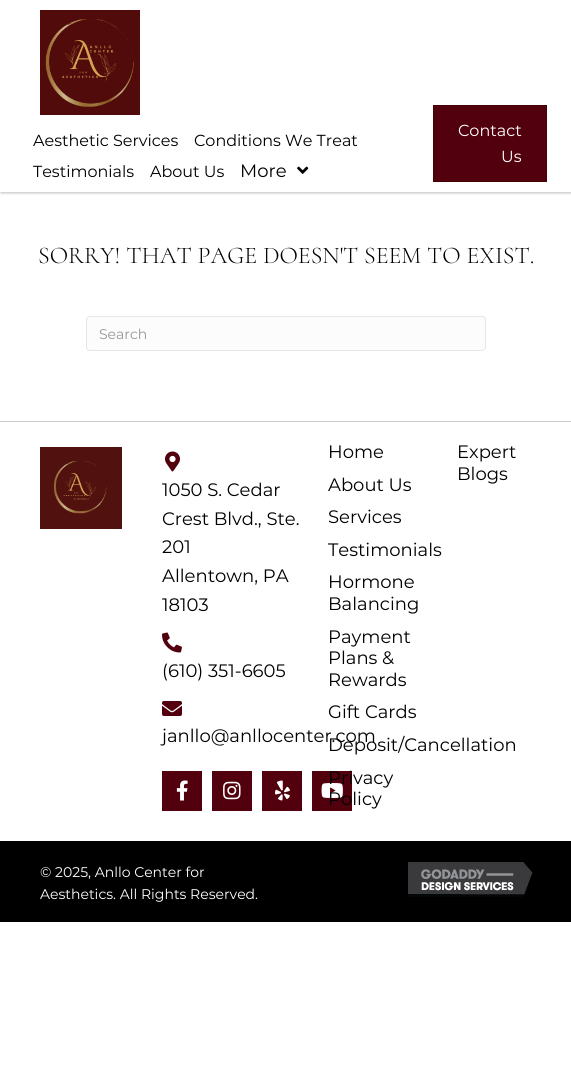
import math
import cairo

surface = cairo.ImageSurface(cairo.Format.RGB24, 571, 1072)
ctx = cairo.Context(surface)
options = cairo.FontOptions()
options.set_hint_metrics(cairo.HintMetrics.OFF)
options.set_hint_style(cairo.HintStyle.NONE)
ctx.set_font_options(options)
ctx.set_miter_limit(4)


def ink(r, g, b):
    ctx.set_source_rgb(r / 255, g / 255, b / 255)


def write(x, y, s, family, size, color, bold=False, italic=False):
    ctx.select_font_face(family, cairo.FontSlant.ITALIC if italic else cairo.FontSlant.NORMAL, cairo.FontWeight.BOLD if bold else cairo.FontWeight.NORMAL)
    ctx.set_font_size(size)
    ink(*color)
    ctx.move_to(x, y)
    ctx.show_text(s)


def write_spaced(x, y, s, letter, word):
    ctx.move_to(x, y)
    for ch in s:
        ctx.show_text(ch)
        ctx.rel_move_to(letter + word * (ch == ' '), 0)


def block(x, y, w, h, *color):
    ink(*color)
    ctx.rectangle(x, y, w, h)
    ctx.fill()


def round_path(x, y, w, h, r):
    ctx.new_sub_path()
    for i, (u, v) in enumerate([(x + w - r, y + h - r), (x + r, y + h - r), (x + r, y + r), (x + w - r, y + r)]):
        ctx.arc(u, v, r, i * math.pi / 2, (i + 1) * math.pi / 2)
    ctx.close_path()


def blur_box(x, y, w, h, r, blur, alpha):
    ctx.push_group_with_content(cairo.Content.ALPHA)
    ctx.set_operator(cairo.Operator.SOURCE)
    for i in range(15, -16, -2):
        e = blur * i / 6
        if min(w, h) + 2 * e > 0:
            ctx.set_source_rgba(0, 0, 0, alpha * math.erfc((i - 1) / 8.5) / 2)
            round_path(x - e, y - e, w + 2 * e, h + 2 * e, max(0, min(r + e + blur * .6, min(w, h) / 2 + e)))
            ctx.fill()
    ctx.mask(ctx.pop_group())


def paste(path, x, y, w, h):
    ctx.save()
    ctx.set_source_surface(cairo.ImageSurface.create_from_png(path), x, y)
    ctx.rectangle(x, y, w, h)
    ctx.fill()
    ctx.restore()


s1 = dict(family="Montserrat", size=16, color=(0, 0, 0))
s2 = dict(family="Montserrat", size=18, color=(0, 0, 0))
s3 = dict(family="Montserrat", size=16, color=(255, 255, 255))
s4 = dict(family="Montserrat", size=14, color=(151, 151, 151))
s5 = dict(family="Montserrat", size=14, color=(255, 255, 255))

ink(255, 255, 255)
ctx.paint()
ctx.save()
ctx.rectangle(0, 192, 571, 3)
ctx.clip()
ink(0, 0, 0)
blur_box(1, 1, 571, 192, 0, 1.5, 0.26)
ctx.restore()
paste("pic1.png", 40, 10, 100, 105)
write(33, 146, "Aesthetic Services", **s1)
write(194, 146, "Conditions We Treat", **s1)
write(33, 177, "Testimonials", **s1)
write(150, 177, "About Us", **s1)
write(240, 177, "More", **s2)
paste("pic2.png", 297, 166, 12, 8)
ink(82, 0, 14)
ctx.rectangle(433.5, 105.5, 113, 76)
ctx.fill_preserve()
ink(70, 0, 2)
ctx.set_line_width(1)
ctx.stroke()
write(458, 136, "Contact", **s3)
write(501, 162, "Us", **s3)
ctx.select_font_face("Cormorant Light")
ctx.set_font_size(24)
ink(0, 0, 0)
write_spaced(38, 263, "SORRY! THAT PAGE DOESN'T SEEM TO EXIST.", 0, 0.25)
ink(252, 252, 252)
round_path(86.5, 316.5, 399, 34, 3.5)
ctx.fill_preserve()
ink(230, 230, 230)
ctx.stroke()
write(99, 339, "Search", **s4)
block(0, 421, 571, 1, 204, 204, 204)
write(328, 458, "Home", **s2)
write(328, 491, "About Us", **s2)
write(328, 523, "Services", **s2)
write(328, 556, "Testimonials", **s2)
write(328, 588, "Hormone", **s2)
write(328, 610, "Balancing", **s2)
write(328, 643, "Payment", **s2)
write(328, 664, "Plans &", **s2)
write(328, 686, "Rewards", **s2)
write(328, 718, "Gift Cards", **s2)
write(328, 751, "Deposit/Cancellation", **s2)
block(312, 771, 40, 40, 82, 0, 14)
paste("pic10.png", 321, 783, 22, 15)
write(328, 784, "Privacy", **s2)
write(328, 805, "Policy", **s2)
paste("pic3.png", 40, 447, 82, 82)
paste("pic4.png", 165, 451, 15, 21)
write(162, 496, "1050 S. Cedar", **s2)
write(162, 525, "Crest Blvd., Ste.", **s2)
write(162, 553, "201", **s2)
write(162, 582, "Allentown, PA", **s2)
write(162, 611, "18103", **s2)
paste("pic5.png", 162, 632, 20, 21)
write(162, 677, "(610) 351-6605", **s2)
paste("pic6.png", 162, 701, 20, 15)
write(162, 742, "janllo@anllocenter.com", **s2)
block(162, 771, 40, 40, 82, 0, 14)
paste("pic7.png", 176, 780, 12, 21)
block(212, 771, 40, 40, 82, 0, 14)
paste("pic8.png", 223, 781, 18, 19)
block(262, 771, 40, 40, 82, 0, 14)
paste("pic9.png", 275, 780, 15, 21)
write(457, 458, "Expert", **s2)
write(457, 480, "Blogs", **s2)
block(0, 841, 571, 81, 0, 0, 0)
write(40, 877, "© 2025, Anllo Center for", **s5)
write(40, 899, "Aesthetics. All Rights Reserved.", **s5)
paste("pic11.png", 408, 862, 125, 35)
surface.write_to_png("screenshot.png")
